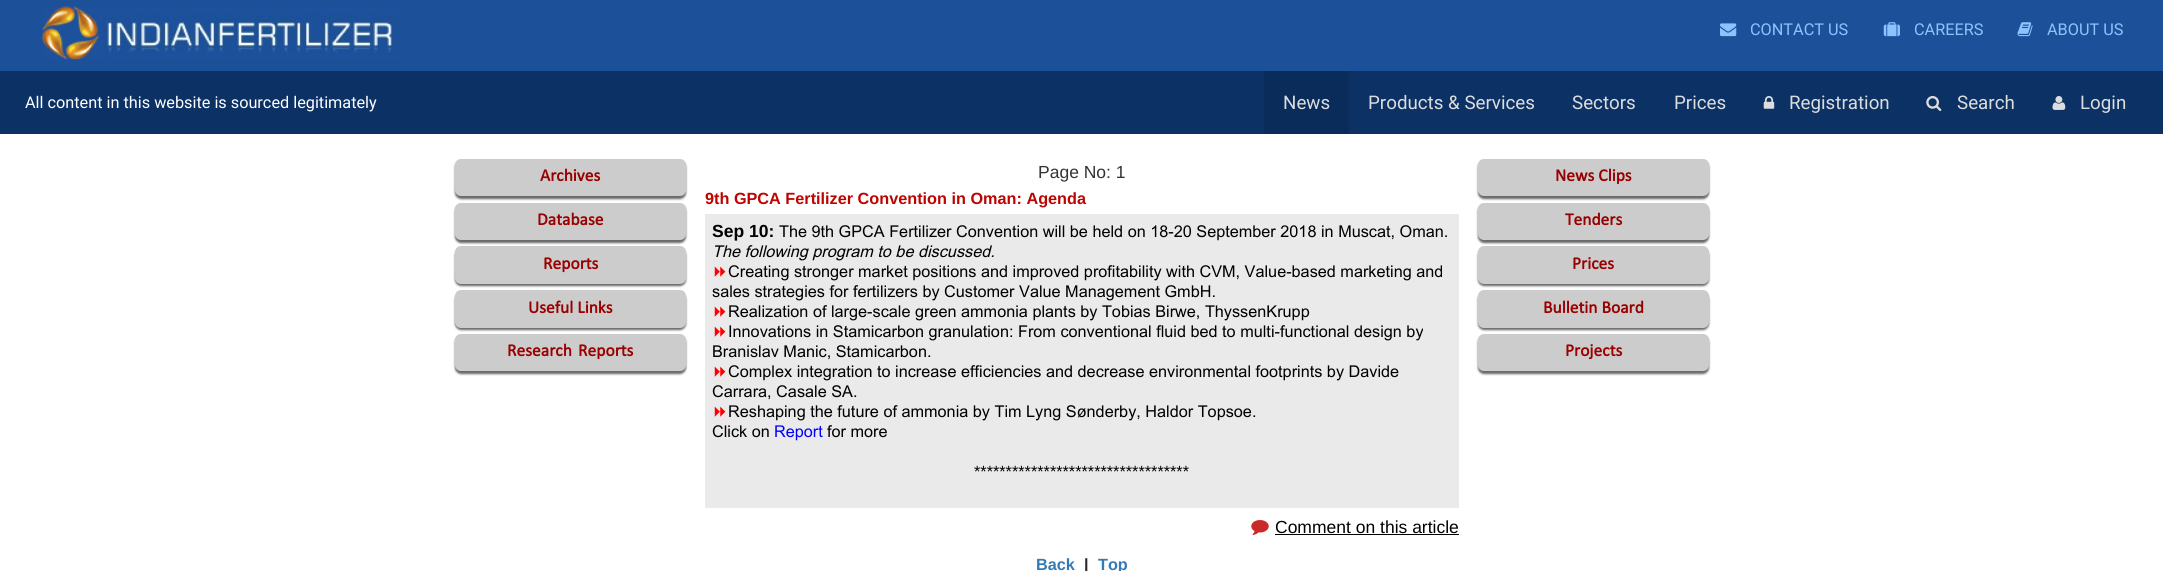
import math
import cairo

surface = cairo.ImageSurface(cairo.Format.RGB24, 2163, 571)
ctx = cairo.Context(surface)
options = cairo.FontOptions()
options.set_hint_metrics(cairo.HintMetrics.OFF)
options.set_hint_style(cairo.HintStyle.NONE)
ctx.set_font_options(options)
ctx.set_miter_limit(4)


def ink(r, g, b):
    ctx.set_source_rgb(r / 255, g / 255, b / 255)


def write(x, y, s, family, size, color, bold=False, italic=False):
    ctx.select_font_face(family, cairo.FontSlant.ITALIC if italic else cairo.FontSlant.NORMAL, cairo.FontWeight.BOLD if bold else cairo.FontWeight.NORMAL)
    ctx.set_font_size(size)
    ink(*color)
    ctx.move_to(x, y)
    ctx.show_text(s)


def block(x, y, w, h, *color):
    ink(*color)
    ctx.rectangle(x, y, w, h)
    ctx.fill()


def round_path(x, y, w, h, r):
    ctx.new_sub_path()
    for i, (u, v) in enumerate([(x + w - r, y + h - r), (x + r, y + h - r), (x + r, y + r), (x + w - r, y + r)]):
        ctx.arc(u, v, r, i * math.pi / 2, (i + 1) * math.pi / 2)
    ctx.close_path()


def blur_box(x, y, w, h, r, blur, alpha):
    ctx.push_group_with_content(cairo.Content.ALPHA)
    ctx.set_operator(cairo.Operator.SOURCE)
    for i in range(15, -16, -2):
        e = blur * i / 6
        if min(w, h) + 2 * e > 0:
            ctx.set_source_rgba(0, 0, 0, alpha * math.erfc((i - 1) / 8.5) / 2)
            round_path(x - e, y - e, w + 2 * e, h + 2 * e, max(0, min(r + e + blur * .6, min(w, h) / 2 + e)))
            ctx.fill()
    ctx.mask(ctx.pop_group())


def paste(path, x, y, w, h):
    ctx.save()
    ctx.set_source_surface(cairo.ImageSurface.create_from_png(path), x, y)
    ctx.rectangle(x, y, w, h)
    ctx.fill()
    ctx.restore()


s1 = dict(family="Roboto", size=16.25, color=(140, 195, 255))
s2 = dict(family="Roboto", size=16.25, color=(255, 255, 255))
s3 = dict(family="Roboto", size=18.75, color=(221, 221, 221))
s4 = dict(family="Calibri", size=17.5, color=(153, 0, 0), bold=True)
s5 = dict(family="Liberation Sans", size=17.5, color=(51, 51, 51))
s6 = dict(family="Liberation Sans", size=16.25, color=(189, 4, 0), bold=True)
s7 = dict(family="Liberation Sans", size=17.5, color=(0, 0, 0), bold=True)
s8 = dict(family="Arial", size=16.25, color=(0, 0, 0))
s9 = dict(family="Arial", size=16.25, color=(0, 0, 0), italic=True)
s10 = dict(family="Arial", size=16.25, color=(0, 0, 255))
s11 = dict(family="Liberation Sans", size=16.25, color=(0, 0, 0))
s12 = dict(family="Liberation Sans", size=17.5, color=(0, 0, 0))
s13 = dict(family="Liberation Sans", size=16.25, color=(51, 122, 183), bold=True)
s14 = dict(family="Liberation Sans", size=16.25, color=(38, 38, 38), bold=True)

ink(255, 255, 255)
ctx.paint()
block(0, 0, 2163, 71, 28, 81, 154)
paste("pic1.png", 42, 6, 357, 54)
paste("pic2.png", 1720, 23, 17, 14)
write(1750, 35, "CONTACT US", **s1)
paste("pic3.png", 1883, 22, 17, 15)
write(1914, 35, "CAREERS", **s1)
paste("pic4.png", 2017, 22, 16, 15)
write(2047, 35, "ABOUT US", **s1)
block(0, 71, 2163, 63, 11, 49, 101)
write(25, 108, "All content in this website is sourced legitimately", **s2)
block(1264, 71, 85, 63, 10, 44, 91)
write(1283, 109, "News", **s3)
write(1368, 109, "Products & Services", **s3)
write(1572, 109, "Sectors", **s3)
write(1674, 109, "Prices", **s3)
paste("pic5.png", 1763, 96, 12, 13)
write(1789, 109, "Registration", **s3)
paste("pic6.png", 1926, 96, 16, 16)
write(1957, 109, "Search", **s3)
paste("pic7.png", 2052, 96, 14, 14)
write(2080, 109, "Login", **s3)
ink(106, 105, 105)
blur_box(455, 161, 231, 38, 6, 1, 1)
ink(204, 204, 204)
round_path(455, 159, 231, 37, 6)
ctx.fill()
write(540, 181, "Archives", **s4)
ink(106, 105, 105)
blur_box(455, 205, 231, 38, 6, 1, 1)
ink(204, 204, 204)
round_path(455, 203, 231, 37, 6)
ctx.fill()
write(537, 225, "Database", **s4)
ink(106, 105, 105)
blur_box(455, 249, 231, 37, 6, 1, 1)
ink(204, 204, 204)
round_path(455, 246, 231, 38, 6)
ctx.fill()
write(543, 269, "Reports", **s4)
ink(106, 105, 105)
blur_box(455, 293, 231, 37, 6, 1, 1)
ink(204, 204, 204)
round_path(455, 290, 231, 38, 6)
ctx.fill()
write(528, 313, "Useful Links", **s4)
ink(106, 105, 105)
blur_box(455, 336, 231, 38, 6, 1, 1)
ink(204, 204, 204)
round_path(455, 334, 231, 37, 6)
ctx.fill()
write(507, 356, "Research", **s4)
write(578, 356, "Reports", **s4)
write(1038, 178, "Page No: 1", **s5)
write(705, 204, "9th GPCA Fertilizer Convention in Oman: Agenda", **s6)
block(705, 214, 754, 294, 234, 234, 234)
write(712, 237, "Sep 10:", **s7)
write(779, 237, "The 9th GPCA Fertilizer Convention will be held on 18-20 September 2018 in Muscat, Oman.", **s8)
write(712, 257, "The following program to be discussed.", **s9)
paste("pic8.png", 714, 266, 12, 11)
write(728, 277, "Creating stronger market positions and improved profitability with CVM, Value-based marketing and", **s8)
write(712, 297, "sales strategies for fertilizers by Customer Value Management GmbH.", **s8)
paste("pic8.png", 714, 306, 12, 11)
write(728, 317, "Realization of large-scale green ammonia plants by Tobias Birwe, ThyssenKrupp", **s8)
paste("pic8.png", 714, 326, 12, 11)
write(728, 337, "Innovations in Stamicarbon granulation: From conventional fluid bed to multi-functional design by", **s8)
write(712, 357, "Branislav Manic, Stamicarbon.", **s8)
paste("pic8.png", 714, 366, 12, 11)
write(728, 377, "Complex integration to increase efficiencies and decrease environmental footprints by Davide", **s8)
write(712, 397, "Carrara, Casale SA.", **s8)
paste("pic8.png", 714, 406, 12, 11)
write(728, 417, "Reshaping the future of ammonia by Tim Lyng Sønderby, Haldor Topsoe.", **s8)
write(712, 437, "Click on", **s8)
write(774, 437, "Report", **s10)
write(827, 437, "for more", **s8)
write(974, 477, "**********************************", **s11)
paste("pic9.png", 1251, 520, 18, 15)
write(1275, 533, "Comment on this article", **s12)
block(1275, 534, 184, 1, 0, 0, 0)
write(1036, 570, "Back", **s13)
write(1084, 570, "|", **s14)
write(1098, 570, "Top", **s13)
ink(106, 105, 105)
blur_box(1478, 161, 231, 38, 6, 1, 1)
ink(204, 204, 204)
round_path(1478, 159, 231, 37, 6)
ctx.fill()
write(1555, 181, "News Clips", **s4)
ink(106, 105, 105)
blur_box(1478, 205, 231, 38, 6, 1, 1)
ink(204, 204, 204)
round_path(1478, 203, 231, 37, 6)
ctx.fill()
write(1565, 225, "Tenders", **s4)
ink(106, 105, 105)
blur_box(1478, 249, 231, 37, 6, 1, 1)
ink(204, 204, 204)
round_path(1478, 246, 231, 38, 6)
ctx.fill()
write(1572, 269, "Prices", **s4)
ink(106, 105, 105)
blur_box(1478, 293, 231, 37, 6, 1, 1)
ink(204, 204, 204)
round_path(1478, 290, 231, 38, 6)
ctx.fill()
write(1543, 313, "Bulletin Board", **s4)
ink(106, 105, 105)
blur_box(1478, 336, 231, 38, 6, 1, 1)
ink(204, 204, 204)
round_path(1478, 334, 231, 37, 6)
ctx.fill()
write(1565, 356, "Projects", **s4)
surface.write_to_png("screenshot.png")
